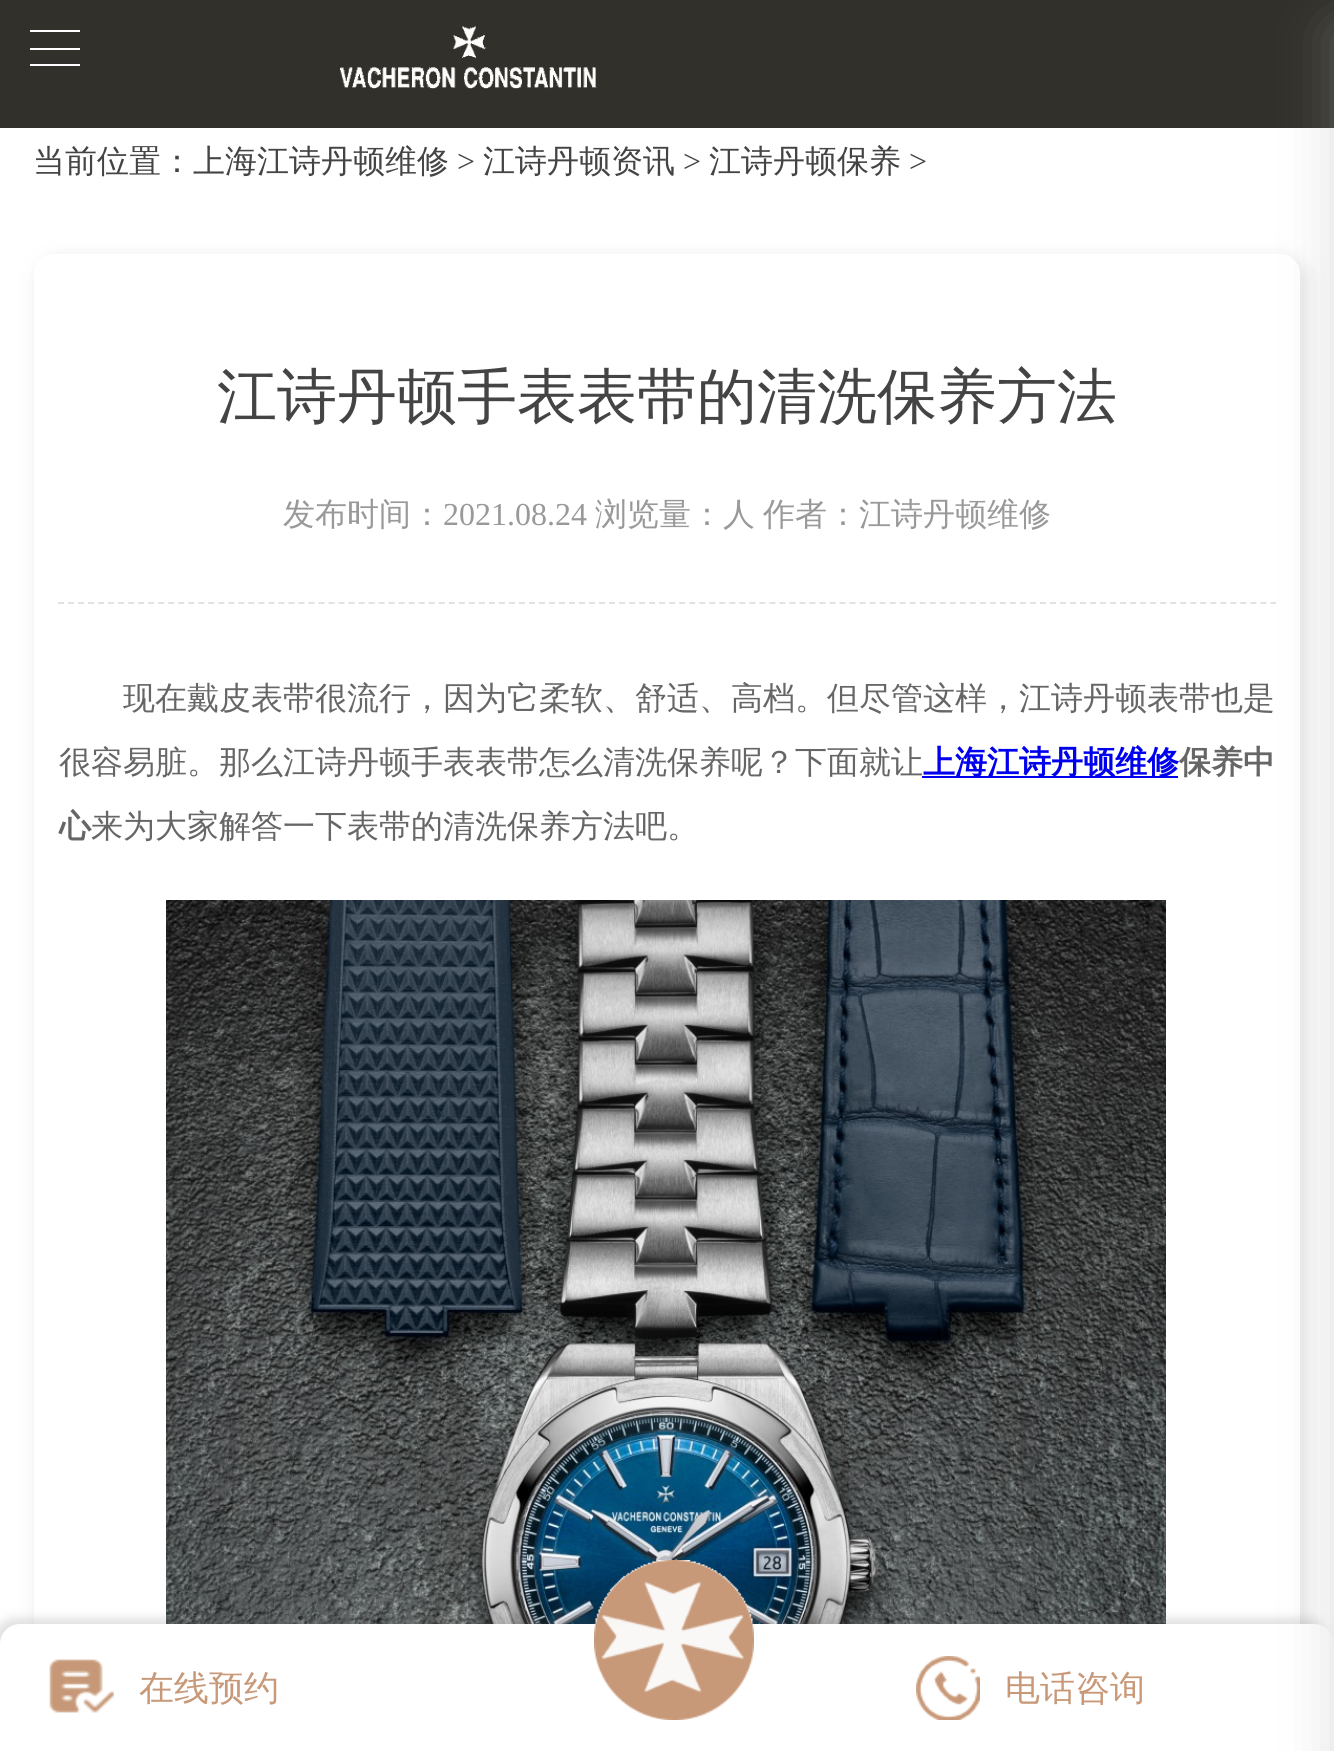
import math
import cairo

surface = cairo.ImageSurface(cairo.Format.RGB24, 1334, 1751)
ctx = cairo.Context(surface)
options = cairo.FontOptions()
options.set_hint_metrics(cairo.HintMetrics.OFF)
options.set_hint_style(cairo.HintStyle.NONE)
ctx.set_font_options(options)
ctx.set_miter_limit(4)


def ink(r, g, b):
    ctx.set_source_rgb(r / 255, g / 255, b / 255)


def write(x, y, s, family, size, color, bold=False, italic=False):
    ctx.select_font_face(family, cairo.FontSlant.ITALIC if italic else cairo.FontSlant.NORMAL, cairo.FontWeight.BOLD if bold else cairo.FontWeight.NORMAL)
    ctx.set_font_size(size)
    ink(*color)
    ctx.move_to(x, y)
    ctx.show_text(s)


def block(x, y, w, h, *color):
    ink(*color)
    ctx.rectangle(x, y, w, h)
    ctx.fill()


def round_path(x, y, w, h, r):
    ctx.new_sub_path()
    for i, (u, v) in enumerate([(x + w - r, y + h - r), (x + r, y + h - r), (x + r, y + r), (x + w - r, y + r)]):
        ctx.arc(u, v, r, i * math.pi / 2, (i + 1) * math.pi / 2)
    ctx.close_path()


def blur_box(x, y, w, h, r, blur, alpha):
    ctx.push_group_with_content(cairo.Content.ALPHA)
    ctx.set_operator(cairo.Operator.SOURCE)
    for i in range(15, -16, -2):
        e = blur * i / 6
        if min(w, h) + 2 * e > 0:
            ctx.set_source_rgba(0, 0, 0, alpha * math.erfc((i - 1) / 8.5) / 2)
            round_path(x - e, y - e, w + 2 * e, h + 2 * e, max(0, min(r + e + blur * .6, min(w, h) / 2 + e)))
            ctx.fill()
    ctx.mask(ctx.pop_group())


def paste(path, x, y, w, h):
    ctx.save()
    ctx.set_source_surface(cairo.ImageSurface.create_from_png(path), x, y)
    ctx.rectangle(x, y, w, h)
    ctx.fill()
    ctx.restore()


s1 = dict(family="WenQuanYi Zen Hei Medium", size=32, color=(68, 68, 68))
s2 = dict(family="Liberation Serif", size=32, color=(68, 68, 68))
s3 = dict(family="WenQuanYi Zen Hei Medium", size=60, color=(68, 68, 68))
s4 = dict(family="WenQuanYi Zen Hei Medium", size=32, color=(153, 153, 153))
s5 = dict(family="Liberation Serif", size=32, color=(153, 153, 153))
s6 = dict(family="WenQuanYi Zen Hei Medium", size=32, color=(102, 102, 102))
s7 = dict(family="WenQuanYi Zen Hei", size=32, color=(0, 0, 238), bold=True)
s8 = dict(family="WenQuanYi Zen Hei", size=32, color=(102, 102, 102), bold=True)
s9 = dict(family="WenQuanYi Zen Hei Medium", size=35, color=(200, 153, 120))

ink(255, 255, 255)
ctx.paint()
block(0, 0, 1334, 128, 49, 48, 42)
block(30, 48, 50, 2, 255, 255, 255)
block(30, 30, 50, 2, 255, 255, 255)
block(30, 64, 50, 2, 255, 255, 255)
paste("pic1.png", 340, 25, 257, 64)
ctx.save()
ctx.set_fill_rule(cairo.FillRule.EVEN_ODD)
ctx.new_path()
ctx.move_to(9, 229)
ctx.line_to(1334, 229)
ctx.line_to(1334, 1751)
ctx.line_to(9, 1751)
ctx.close_path()
ctx.move_to(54, 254)
ctx.line_to(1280, 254)
ctx.curve_to(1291, 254, 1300, 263, 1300, 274)
ctx.line_to(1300, 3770)
ctx.curve_to(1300, 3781, 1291, 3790, 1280, 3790)
ctx.line_to(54, 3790)
ctx.curve_to(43, 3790, 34, 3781, 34, 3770)
ctx.line_to(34, 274)
ctx.curve_to(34, 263, 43, 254, 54, 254)
ctx.close_path()
ctx.clip()
ink(102, 102, 102)
blur_box(40, 260, 1266, 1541, 20, 10, 0.2)
ctx.restore()
ctx.new_path()
ctx.move_to(58, 603)
ctx.line_to(1276, 603)
ink(226, 226, 226)
ctx.set_dash([6, 4.02])
ctx.stroke()
paste("pic2.png", 166, 900, 1000, 724)
ink(102, 102, 102)
blur_box(-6, 1618, 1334, 128, 20, 5, 0.2)
ink(255, 255, 255)
ctx.new_path()
ctx.move_to(20, 1624)
ctx.line_to(1314, 1624)
ctx.curve_to(1325, 1624, 1334, 1633, 1334, 1644)
ctx.line_to(1334, 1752)
ctx.line_to(0, 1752)
ctx.line_to(0, 1644)
ctx.curve_to(0, 1633, 9, 1624, 20, 1624)
ctx.close_path()
ctx.fill()
ink(167, 165, 165)
blur_box(1334, 30, 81, 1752, 0, 27, 0.38)
write(33, 172, "当前位置：上海江诗丹顿维修", **s1)
write(457, 172, ">", **s2)
write(483, 172, "江诗丹顿资讯", **s1)
write(683, 172, ">", **s2)
write(709, 172, "江诗丹顿保养", **s1)
write(909, 172, ">", **s2)
write(217, 417, "江诗丹顿手表表带的清洗保养方法", **s3)
write(283, 525, "发布时间：", **s4)
write(443, 525, "2021.08.24", **s5)
write(595, 525, "浏览量：人", **s4)
write(763, 525, "作者：江诗丹顿维修", **s4)
write(123, 709, "现在戴皮表带很流行，因为它柔软、舒适、高档。但尽管这样，江诗丹顿表带也是", **s6)
write(59, 773, "很容易脏。那么江诗丹顿手表表带怎么清洗保养呢？下面就让", **s6)
block(922, 776, 256, 2, 0, 0, 238)
write(923, 773, "上海江诗丹顿维修", **s7)
write(1179, 773, "保养中", **s8)
write(59, 837, "心", **s8)
write(91, 837, "来为大家解答一下表带的清洗保养方法吧。", **s6)
paste("pic3.png", 49, 1659, 65, 54)
write(139, 1700, "在线预约", **s9)
paste("pic4.png", 594, 1560, 160, 160)
paste("pic5.png", 916, 1656, 64, 64)
write(1005, 1700, "电话咨询", **s9)
surface.write_to_png("screenshot.png")
